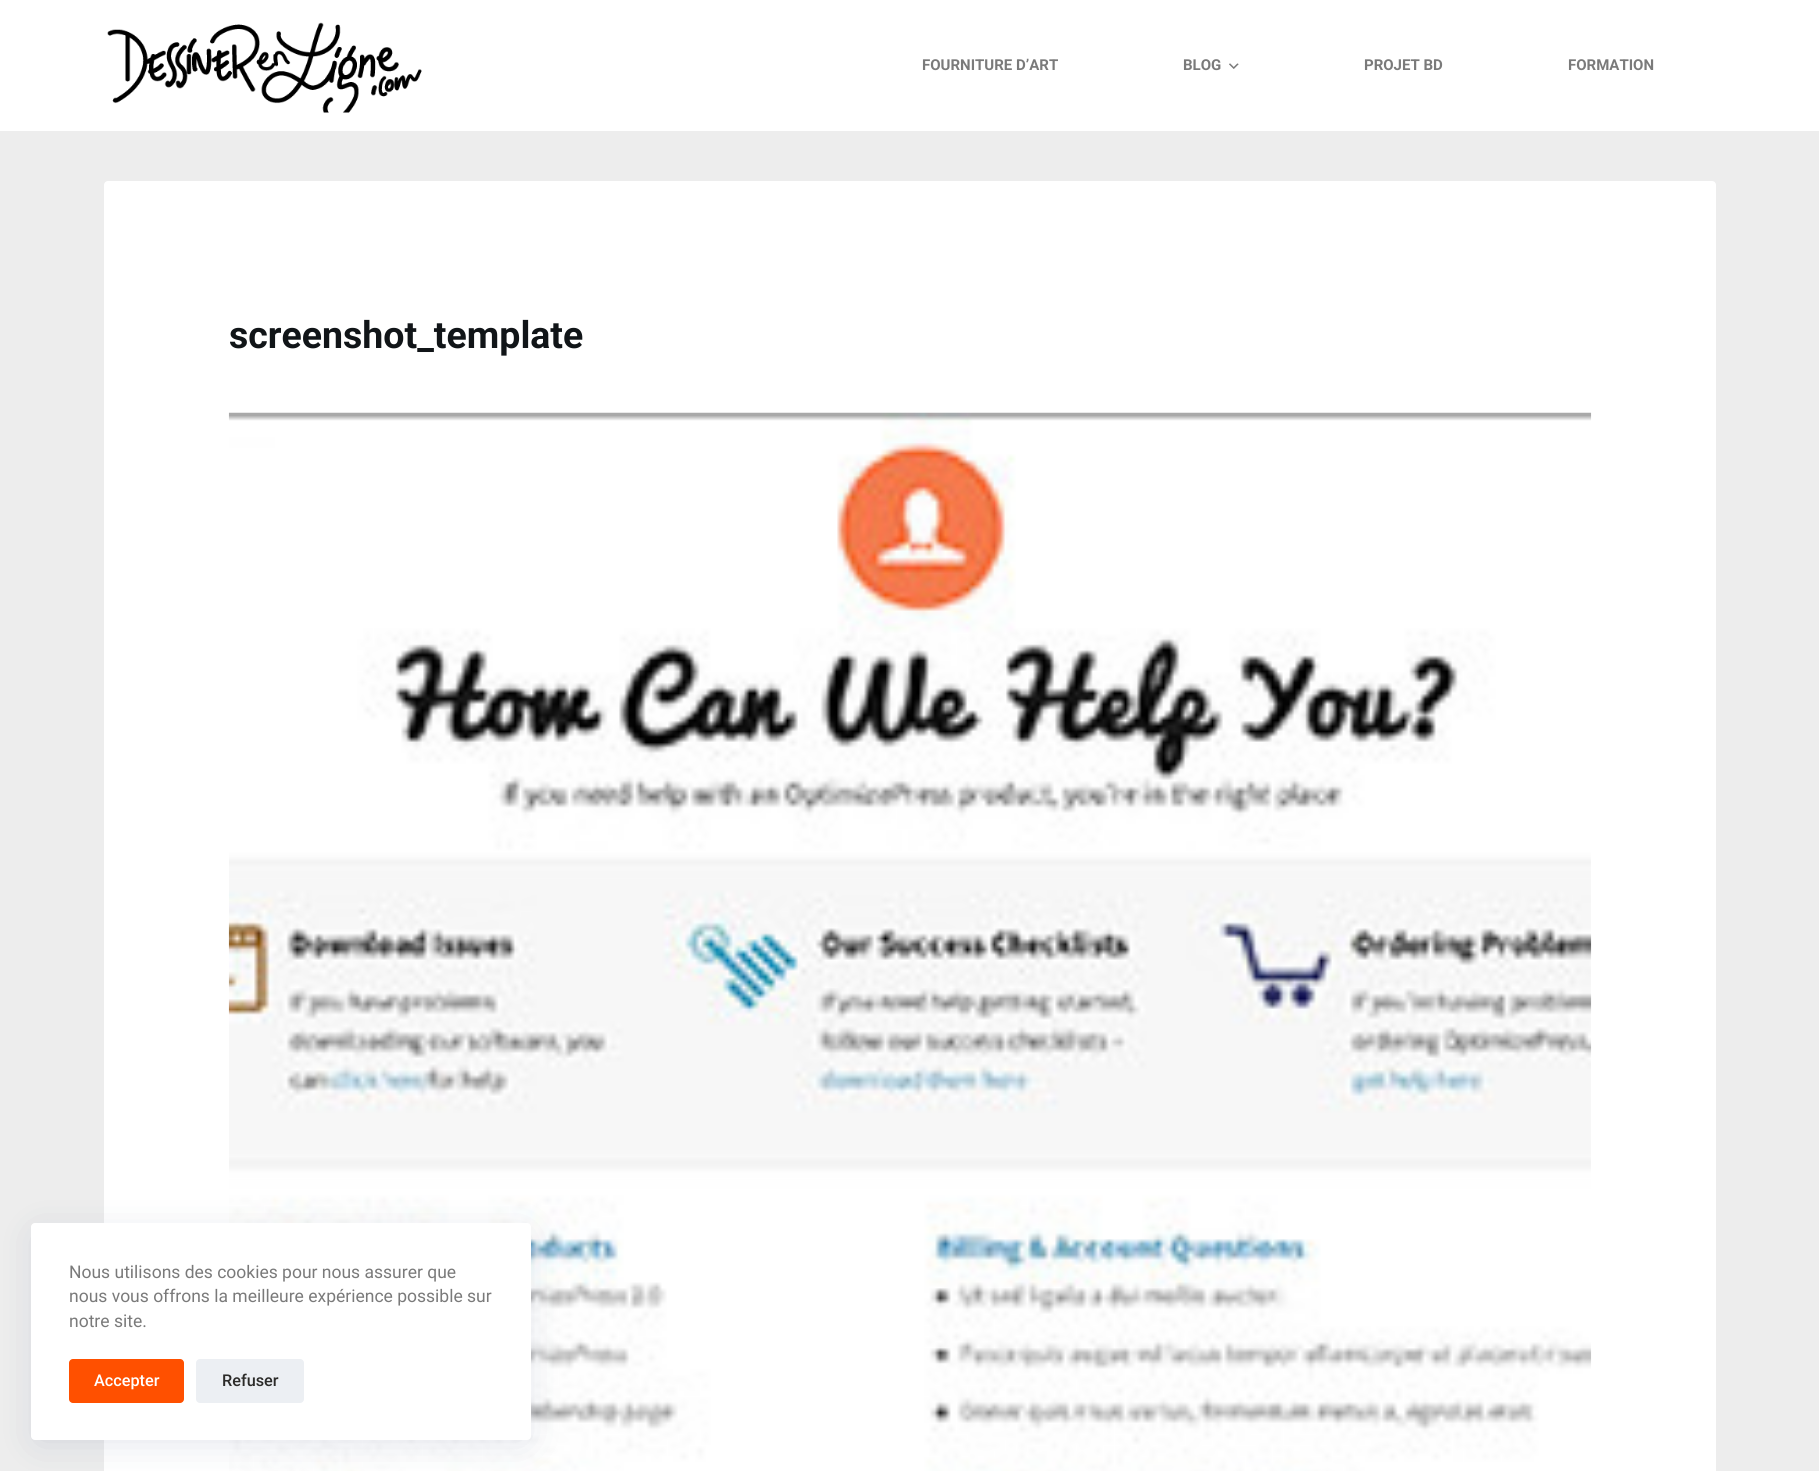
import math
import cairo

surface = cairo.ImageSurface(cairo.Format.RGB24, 1819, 1471)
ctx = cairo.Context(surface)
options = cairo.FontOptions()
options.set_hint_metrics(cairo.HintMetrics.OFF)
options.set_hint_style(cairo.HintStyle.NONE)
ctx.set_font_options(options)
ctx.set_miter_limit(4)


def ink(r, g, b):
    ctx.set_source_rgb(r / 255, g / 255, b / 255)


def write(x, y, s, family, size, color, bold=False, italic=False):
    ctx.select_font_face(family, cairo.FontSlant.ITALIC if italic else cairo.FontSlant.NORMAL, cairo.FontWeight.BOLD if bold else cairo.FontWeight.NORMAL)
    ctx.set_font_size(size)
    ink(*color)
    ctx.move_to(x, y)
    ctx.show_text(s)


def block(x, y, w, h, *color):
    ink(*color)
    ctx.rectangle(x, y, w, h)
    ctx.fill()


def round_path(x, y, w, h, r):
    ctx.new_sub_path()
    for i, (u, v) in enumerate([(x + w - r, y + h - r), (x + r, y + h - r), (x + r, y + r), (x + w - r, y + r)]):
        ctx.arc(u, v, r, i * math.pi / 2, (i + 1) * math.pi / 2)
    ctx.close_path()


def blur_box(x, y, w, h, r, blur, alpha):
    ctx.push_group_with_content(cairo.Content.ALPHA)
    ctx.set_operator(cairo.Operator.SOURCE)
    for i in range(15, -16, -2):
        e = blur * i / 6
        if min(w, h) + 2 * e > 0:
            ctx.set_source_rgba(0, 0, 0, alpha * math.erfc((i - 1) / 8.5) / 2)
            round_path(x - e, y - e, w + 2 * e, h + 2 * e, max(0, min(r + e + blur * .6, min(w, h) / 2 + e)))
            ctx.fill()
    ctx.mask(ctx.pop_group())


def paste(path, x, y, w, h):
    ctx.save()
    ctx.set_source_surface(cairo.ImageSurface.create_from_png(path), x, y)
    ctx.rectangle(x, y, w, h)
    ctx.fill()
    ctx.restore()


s1 = dict(family="Roboto", size=15, color=(122, 122, 122), bold=True)
s2 = dict(family="Roboto", size=37.5, color=(17, 21, 24), bold=True)
s3 = dict(family="Roboto", size=17.5, color=(122, 122, 122))
s4 = dict(family="Roboto Medium", size=16.25, color=(255, 255, 255))
s5 = dict(family="Roboto Medium", size=16.25, color=(44, 43, 41))

ink(237, 237, 237)
ctx.paint()
block(0, 0, 1819, 131, 255, 255, 255)
paste("pic1.png", 107, 22, 315, 91)
write(922, 70, "FOURNITURE D’ART", **s1)
write(1183, 70, "BLOG", **s1)
paste("pic2.png", 1229, 63, 10, 6)
write(1364, 70, "PROJET BD", **s1)
write(1568, 70, "FORMATION", **s1)
ink(255, 255, 255)
round_path(104, 181, 1612, 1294, 4)
ctx.fill()
write(229, 348, "screenshot_template", **s2)
paste("pic3.png", 228, 412, 1364, 1059)
ink(34, 56, 101)
blur_box(38, 1235, 487, 205, 0, 19, 0.15)
ink(255, 255, 255)
round_path(31, 1223, 500, 217, 4)
ctx.fill()
write(69, 1278, "Nous utilisons des cookies pour nous assurer que", **s3)
write(69, 1302, "nous vous offrons la meilleure expérience possible sur", **s3)
write(69, 1327, "notre site.", **s3)
ink(255, 80, 0)
round_path(69, 1359, 115, 44, 4)
ctx.fill()
write(94, 1386, "Accepter", **s4)
ink(236, 239, 243)
round_path(196, 1359, 108, 44, 4)
ctx.fill()
write(222, 1386, "Refuser", **s5)
surface.write_to_png("screenshot.png")
